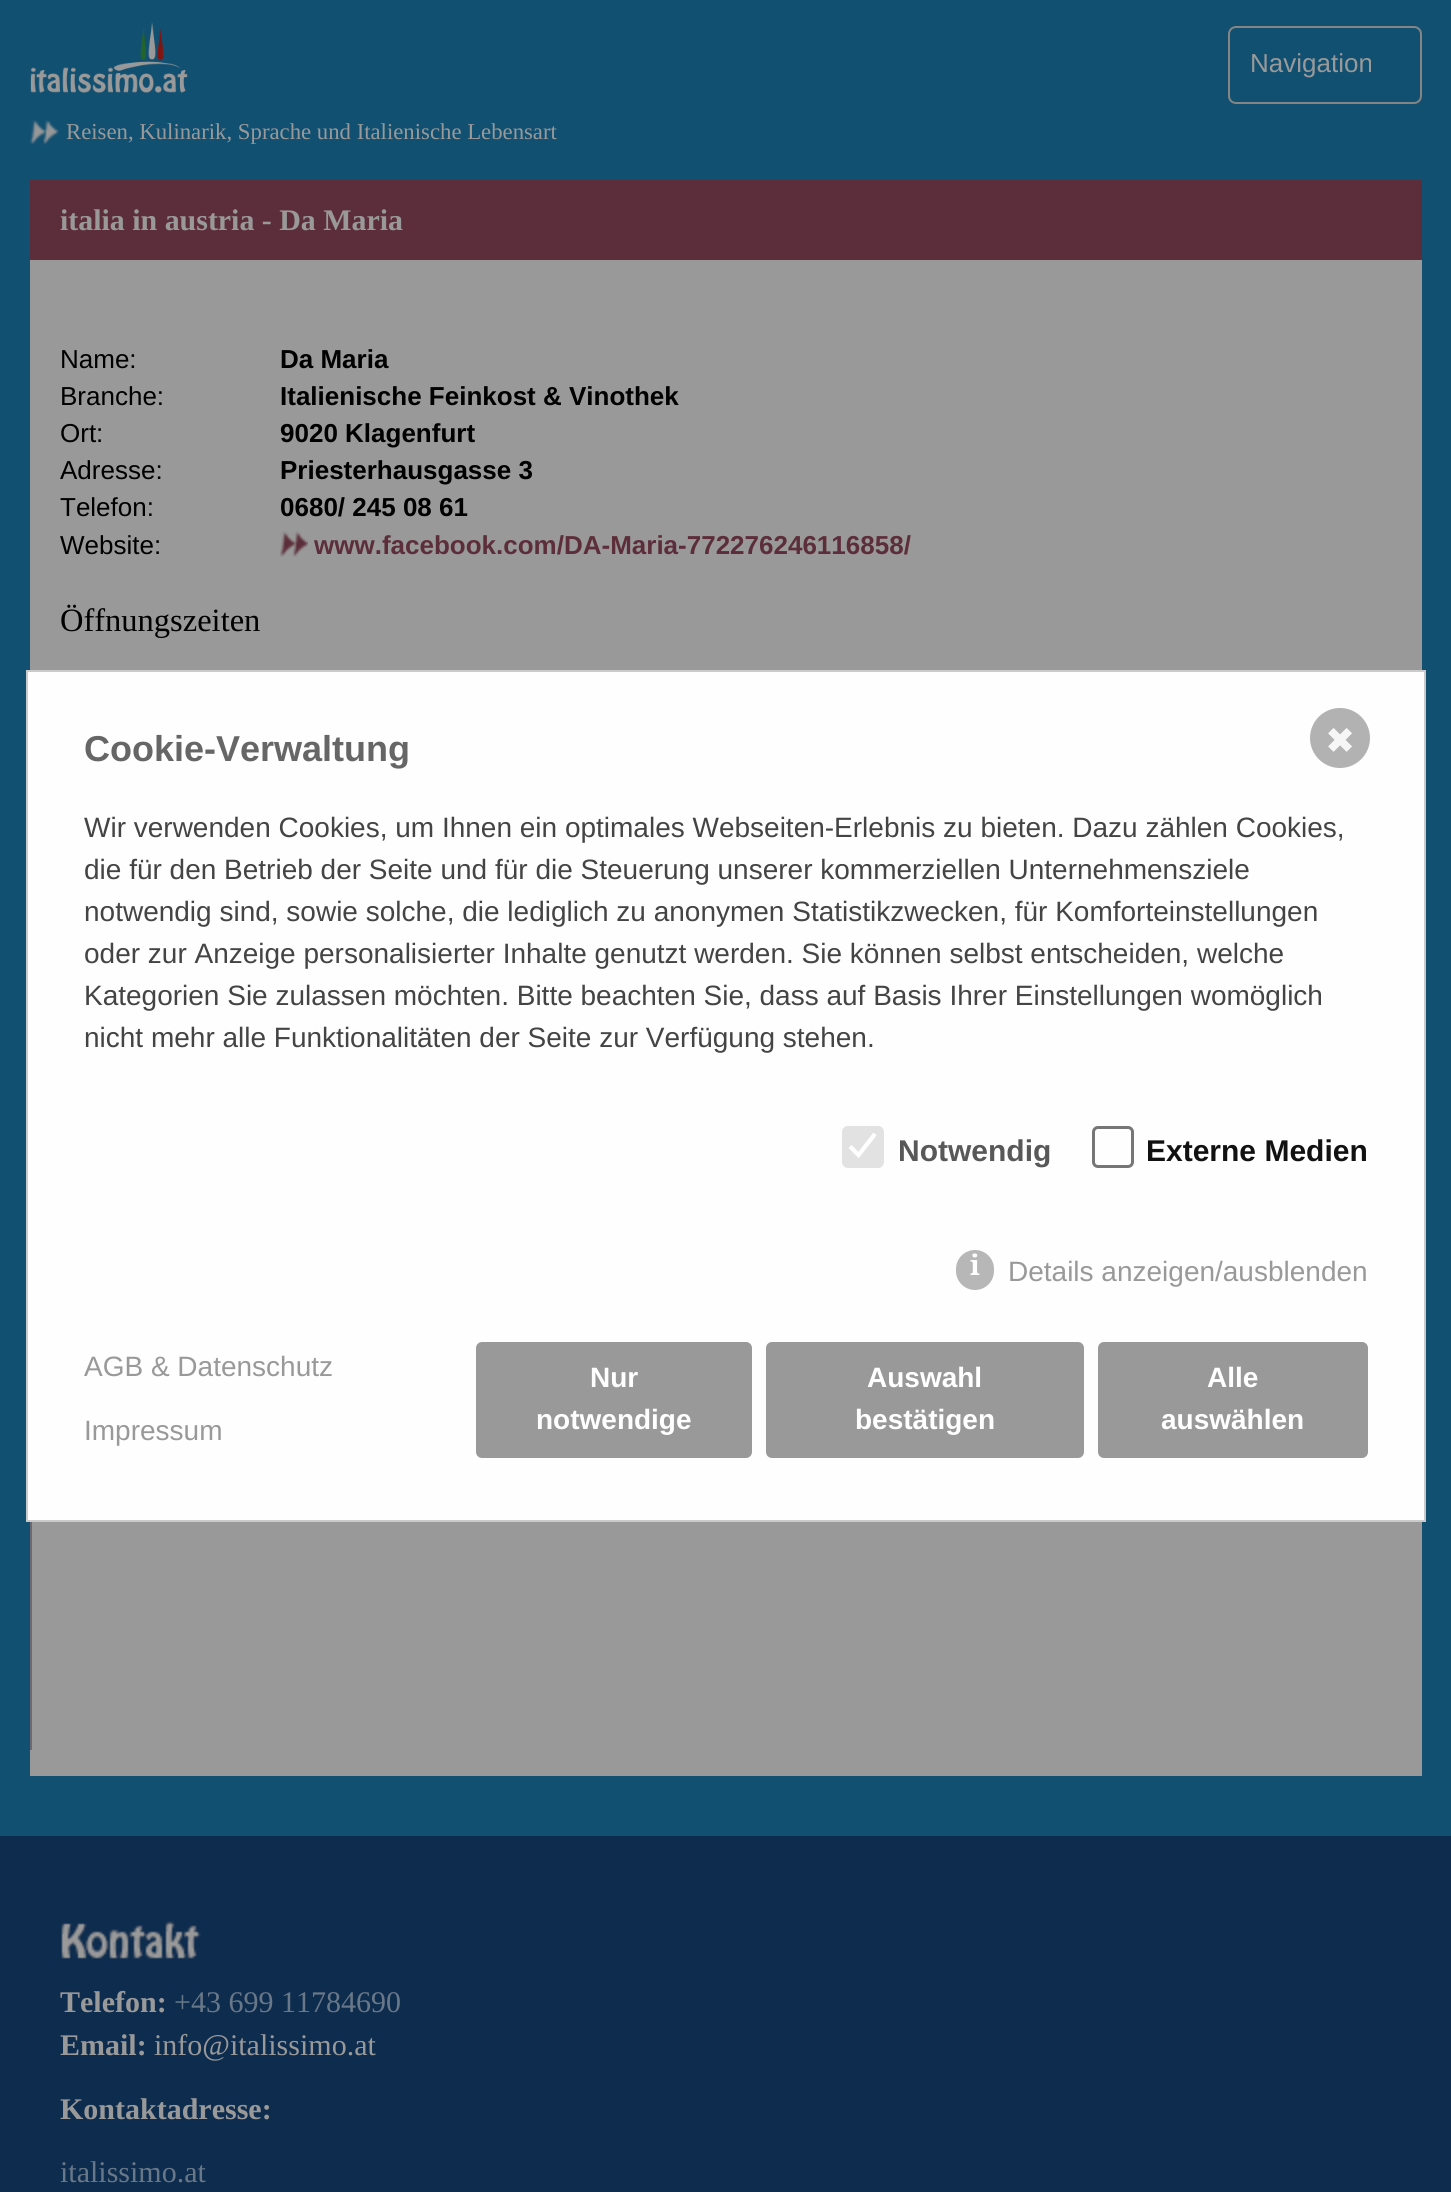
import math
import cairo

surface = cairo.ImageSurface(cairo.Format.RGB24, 1451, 2192)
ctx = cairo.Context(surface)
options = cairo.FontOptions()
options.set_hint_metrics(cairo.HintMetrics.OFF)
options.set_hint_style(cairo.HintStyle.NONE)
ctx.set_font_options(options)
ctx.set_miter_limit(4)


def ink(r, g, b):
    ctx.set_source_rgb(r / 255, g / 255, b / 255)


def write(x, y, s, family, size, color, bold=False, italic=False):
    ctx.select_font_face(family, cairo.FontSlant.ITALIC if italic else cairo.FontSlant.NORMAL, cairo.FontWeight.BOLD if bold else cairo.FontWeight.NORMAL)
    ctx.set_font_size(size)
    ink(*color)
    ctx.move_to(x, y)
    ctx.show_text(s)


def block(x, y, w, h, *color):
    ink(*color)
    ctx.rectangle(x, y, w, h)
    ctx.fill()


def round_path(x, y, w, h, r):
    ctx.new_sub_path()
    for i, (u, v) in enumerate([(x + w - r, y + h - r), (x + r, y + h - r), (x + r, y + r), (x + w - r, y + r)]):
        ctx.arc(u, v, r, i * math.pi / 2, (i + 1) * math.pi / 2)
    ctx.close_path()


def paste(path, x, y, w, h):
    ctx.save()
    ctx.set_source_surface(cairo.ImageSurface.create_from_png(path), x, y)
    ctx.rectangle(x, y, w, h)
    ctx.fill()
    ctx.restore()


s1 = dict(family="Liberation Sans", size=26, color=(153, 153, 153))
s2 = dict(family="Liberation Serif", size=22.75, color=(153, 153, 153))
s3 = dict(family="Liberation Serif", size=29.9, color=(153, 153, 153), bold=True)
s4 = dict(family="Liberation Sans", size=26, color=(0, 0, 0))
s5 = dict(family="Liberation Sans", size=26, color=(0, 0, 0), bold=True)
s6 = dict(family="Liberation Sans", size=26, color=(92, 46, 59), bold=True)
s7 = dict(family="Liberation Serif", size=32.5, color=(0, 0, 0))
s8 = dict(family="DejaVu Sans", size=36, color=(246, 246, 246))
s9 = dict(family="Liberation Sans", size=36, color=(102, 102, 102), bold=True)
s10 = dict(family="Liberation Sans", size=28, color=(68, 68, 68))
s11 = dict(family="Liberation Sans", size=30, color=(88, 88, 88), bold=True)
s12 = dict(family="Liberation Sans", size=30, color=(17, 17, 17), bold=True)
s13 = dict(family="Noto Serif", size=28, color=(255, 255, 255), bold=True)
s14 = dict(family="Liberation Sans", size=28, color=(153, 153, 153))
s15 = dict(family="Liberation Sans", size=28, color=(255, 255, 255), bold=True)
s16 = dict(family="Liberation Serif", size=30, color=(153, 153, 153), bold=True)
s17 = dict(family="Liberation Serif", size=30, color=(105, 120, 136))
s18 = dict(family="Liberation Serif", size=30, color=(153, 153, 153))

ink(17, 80, 113)
ctx.paint()
round_path(1229, 27, 192, 76, 7)
ink(133, 133, 133)
ctx.stroke()
write(1250, 72, "Navigation", **s1)
paste("pic1.png", 30, 22, 158, 71)
paste("pic2.png", 30, 119, 29, 26)
write(66, 139, "Reisen, Kulinarik, Sprache und Italienische Lebensart", **s2)
block(30, 260, 1392, 1516, 153, 153, 153)
block(30, 180, 1392, 80, 92, 46, 59)
write(60, 230, "italia in austria - Da Maria", **s3)
write(60, 368, "Name:", **s4)
write(280, 368, "Da Maria", **s5)
write(60, 405, "Branche:", **s4)
write(280, 405, "Italienische Feinkost & Vinothek", **s5)
write(60, 442, "Ort:", **s4)
write(280, 442, "9020 Klagenfurt", **s5)
write(60, 479, "Adresse:", **s4)
write(280, 479, "Priesterhausgasse 3", **s5)
write(60, 516, "Telefon:", **s4)
write(280, 516, "0680/ 245 08 61", **s5)
write(60, 554, "Website:", **s4)
paste("pic3.png", 280, 531, 28, 26)
write(314, 554, "www.facebook.com/DA-Maria-772276246116858/", **s6)
write(60, 631, "Öffnungszeiten", **s7)
block(30, 1522, 2, 228, 112, 104, 112)
ink(254, 254, 254)
ctx.rectangle(27, 671, 1398, 850)
ctx.fill_preserve()
ink(203, 203, 203)
ctx.stroke()
ink(178, 178, 178)
ctx.arc(1340, 738, 28, 0, 2 * math.pi)
ctx.fill_preserve()
ctx.set_line_width(4)
ctx.stroke()
write(1325, 753, "✖", **s8)
write(84, 761, "Cookie-Verwaltung", **s9)
write(84, 837, "Wir verwenden Cookies, um Ihnen ein optimales Webseiten-Erlebnis zu bieten. Dazu zählen Cookies,", **s10)
write(84, 879, "die für den Betrieb der Seite und für die Steuerung unserer kommerziellen Unternehmensziele", **s10)
write(84, 921, "notwendig sind, sowie solche, die lediglich zu anonymen Statistikzwecken, für Komforteinstellungen", **s10)
write(84, 963, "oder zur Anzeige personalisierter Inhalte genutzt werden. Sie können selbst entscheiden, welche", **s10)
write(84, 1005, "Kategorien Sie zulassen möchten. Bitte beachten Sie, dass auf Basis Ihrer Einstellungen womöglich", **s10)
write(84, 1047, "nicht mehr alle Funktionalitäten der Seite zur Verfügung stehen.", **s10)
ink(226, 226, 226)
round_path(842, 1126, 42, 42, 6)
ctx.fill()
ctx.new_path()
ctx.move_to(850, 1146.5)
ctx.line_to(858.5, 1155)
ctx.line_to(875, 1134)
ink(255, 255, 255)
ctx.set_line_width(4.2)
ctx.stroke()
write(898, 1161, "Notwendig", **s11)
round_path(1093.5, 1127.5, 39, 39, 4.5)
ink(118, 118, 118)
ctx.set_line_width(3)
ctx.stroke()
write(1146, 1161, "Externe Medien", **s12)
ink(183, 183, 183)
round_path(956, 1250, 38, 40, 19)
ctx.fill()
write(970, 1275, "i", **s13)
write(1008, 1281, "Details anzeigen/ausblenden", **s14)
write(84, 1376, "AGB & Datenschutz", **s14)
write(84, 1440, "Impressum", **s14)
round_path(477, 1343, 274, 114, 5)
ctx.fill_preserve()
ctx.set_line_width(2)
ctx.stroke()
write(590, 1387, "Nur", **s15)
write(536, 1429, "notwendige", **s15)
ink(153, 153, 153)
round_path(767, 1343, 316, 114, 5)
ctx.fill_preserve()
ctx.stroke()
write(867, 1387, "Auswahl", **s15)
write(855, 1429, "bestätigen", **s15)
ink(153, 153, 153)
round_path(1099, 1343, 268, 114, 5)
ctx.fill_preserve()
ctx.stroke()
write(1207, 1387, "Alle", **s15)
write(1161, 1429, "auswählen", **s15)
block(0, 1836, 1451, 356, 14, 44, 77)
paste("pic4.png", 61, 1921, 140, 38)
write(60, 2012, "Telefon:", **s16)
write(174, 2012, "+43 699 11784690", **s17)
write(60, 2055, "Email:", **s16)
write(154, 2055, "info@italissimo.at", **s18)
write(60, 2119, "Kontaktadresse:", **s16)
write(60, 2182, "italissimo.at", **s17)
surface.write_to_png("screenshot.png")
